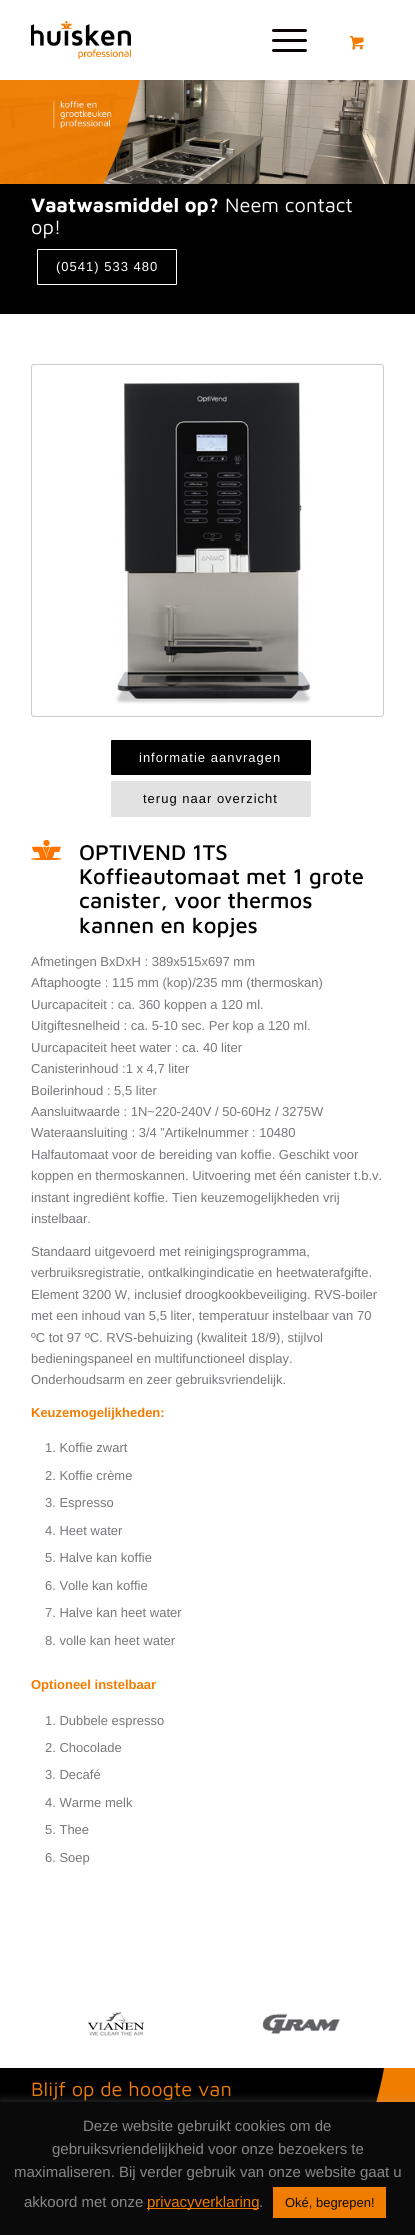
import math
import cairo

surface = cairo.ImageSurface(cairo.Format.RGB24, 415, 2235)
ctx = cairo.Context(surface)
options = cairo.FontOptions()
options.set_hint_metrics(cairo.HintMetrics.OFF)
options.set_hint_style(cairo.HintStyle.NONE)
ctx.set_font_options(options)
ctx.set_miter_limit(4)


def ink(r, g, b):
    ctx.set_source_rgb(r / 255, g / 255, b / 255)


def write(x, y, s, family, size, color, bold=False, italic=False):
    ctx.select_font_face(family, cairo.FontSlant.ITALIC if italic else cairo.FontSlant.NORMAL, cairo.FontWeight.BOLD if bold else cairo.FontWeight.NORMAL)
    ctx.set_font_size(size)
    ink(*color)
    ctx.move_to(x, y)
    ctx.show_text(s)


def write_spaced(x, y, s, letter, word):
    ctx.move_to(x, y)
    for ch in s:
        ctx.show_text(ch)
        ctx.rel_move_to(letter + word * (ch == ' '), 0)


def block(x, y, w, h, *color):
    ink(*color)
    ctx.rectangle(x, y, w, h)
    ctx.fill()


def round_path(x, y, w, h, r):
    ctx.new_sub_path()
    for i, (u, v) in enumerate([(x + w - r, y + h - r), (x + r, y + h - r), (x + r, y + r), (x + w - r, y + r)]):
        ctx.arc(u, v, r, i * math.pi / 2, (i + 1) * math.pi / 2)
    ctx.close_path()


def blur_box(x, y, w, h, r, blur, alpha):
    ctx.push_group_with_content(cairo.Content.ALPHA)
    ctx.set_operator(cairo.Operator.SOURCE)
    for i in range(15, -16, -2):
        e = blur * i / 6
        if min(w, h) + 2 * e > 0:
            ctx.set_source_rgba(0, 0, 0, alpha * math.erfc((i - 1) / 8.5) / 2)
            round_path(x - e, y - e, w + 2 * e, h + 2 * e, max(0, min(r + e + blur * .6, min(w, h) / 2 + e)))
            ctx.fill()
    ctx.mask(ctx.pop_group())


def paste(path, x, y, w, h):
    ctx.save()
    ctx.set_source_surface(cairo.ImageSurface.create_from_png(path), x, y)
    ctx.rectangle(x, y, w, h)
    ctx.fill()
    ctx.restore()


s1 = dict(family="Maven Pro", size=20, color=(255, 255, 255), bold=True)
s2 = dict(family="Maven Pro", size=20, color=(255, 255, 255))
s3 = dict(family="Maven Pro Medium", size=22, color=(0, 0, 0))
s4 = dict(family="Liberation Sans", size=13, color=(119, 120, 123))
s5 = dict(family="Liberation Sans", size=13, color=(240, 124, 0), bold=True)
s6 = dict(family="Maven Pro", size=20, color=(240, 124, 0))
s7 = dict(family="Liberation Sans", size=15, color=(136, 136, 136))
s8 = dict(family="Liberation Sans", size=15, color=(240, 124, 0))
s9 = dict(family="Liberation Sans", size=13, color=(10, 10, 10))

ink(255, 255, 255)
ctx.paint()
paste("pic1.png", 31, 21, 100, 38)
ink(10, 4, 5)
round_path(272, 39, 35, 3, 1.5)
ctx.fill()
round_path(272, 29, 35, 3, 1.5)
ctx.fill()
round_path(272, 49, 35, 3, 1.5)
ctx.fill()
paste("pic2.png", 350, 36, 14, 14)
paste("pic3.png", 0, 80, 415, 104)
paste("pic4.png", 0, 80, 140, 104)
block(0, 184, 415, 130, 0, 0, 0)
write(31, 212, "Vaatwasmiddel op?", **s1)
write(225, 212, "Neem contact", **s2)
write(31, 234, "op!", **s2)
round_path(37.5, 249.5, 139, 35, 0.5)
ctx.set_line_width(1)
ctx.stroke()
ctx.select_font_face("Liberation Sans")
ctx.set_font_size(13)
write_spaced(56, 271, "(0541) 533 480", 1, 0)
round_path(31.5, 364.5, 352, 352, 2.5)
ink(205, 205, 205)
ctx.stroke()
paste("pic5.png", 115, 382, 196, 322)
ink(0, 0, 0)
round_path(111.5, 740.5, 199, 34, 0.5)
ctx.fill_preserve()
ctx.stroke()
ink(255, 255, 255)
write_spaced(139, 762, "informatie aanvragen", 1, 0)
ink(226, 226, 226)
round_path(111.5, 781.5, 199, 35, 0.5)
ctx.fill_preserve()
ctx.stroke()
ink(0, 0, 0)
write_spaced(143, 803, "terug naar overzicht", 1, 0)
paste("pic6.png", 31, 840, 30, 20)
write(79, 860, "OPTIVEND 1TS", **s3)
write(79, 884, "Koffieautomaat met 1 grote", **s3)
write(79, 908, "canister, voor thermos", **s3)
write(79, 933, "kannen en kopjes", **s3)
write(31, 966, "Afmetingen BxDxH : 389x515x697 mm", **s4)
write(31, 987, "Aftaphoogte : 115 mm (kop)/235 mm (thermoskan)", **s4)
write(31, 1009, "Uurcapaciteit : ca. 360 koppen a 120 ml.", **s4)
write(31, 1030, "Uitgiftesnelheid : ca. 5-10 sec. Per kop a 120 ml.", **s4)
write(31, 1052, "Uurcapaciteit heet water : ca. 40 liter", **s4)
write(31, 1073, "Canisterinhoud :1 x 4,7 liter", **s4)
write(31, 1095, "Boilerinhoud : 5,5 liter", **s4)
write(31, 1116, "Aansluitwaarde : 1N~220-240V / 50-60Hz / 3275W", **s4)
write(31, 1137, "Wateraansluiting : 3/4 ”Artikelnummer : 10480", **s4)
write(31, 1159, "Halfautomaat voor de bereiding van koffie. Geschikt voor", **s4)
write(31, 1180, "koppen en thermoskannen. Uitvoering met één canister t.b.v.", **s4)
write(31, 1202, "instant ingrediënt koffie. Tien keuzemogelijkheden vrij", **s4)
write(31, 1223, "instelbaar.", **s4)
write(31, 1256, "Standaard uitgevoerd met reinigingsprogramma,", **s4)
write(31, 1277, "verbruiksregistratie, ontkalkingindicatie en heetwaterafgifte.", **s4)
write(31, 1299, "Element 3200 W, inclusief droogkookbeveiliging. RVS-boiler", **s4)
write(31, 1320, "met een inhoud van 5,5 liter, temperatuur instelbaar van 70", **s4)
write(31, 1342, "ºC tot 97 ºC. RVS-behuizing (kwaliteit 18/9), stijlvol", **s4)
write(31, 1363, "bedieningspaneel en multifunctioneel display.", **s4)
write(31, 1384, "Onderhoudsarm en zeer gebruiksvriendelijk.", **s4)
write(31, 1417, "Keuzemogelijkheden:", **s5)
write(45, 1452, "1. Koffie zwart", **s4)
write(45, 1480, "2. Koffie crème", **s4)
write(45, 1507, "3. Espresso", **s4)
write(45, 1535, "4. Heet water", **s4)
write(45, 1562, "5. Halve kan koffie", **s4)
write(45, 1590, "6. Volle kan koffie", **s4)
write(45, 1617, "7. Halve kan heet water", **s4)
write(45, 1645, "8. volle kan heet water", **s4)
write(31, 1689, "Optioneel instelbaar", **s5)
write(45, 1725, "1. Dubbele espresso", **s4)
write(45, 1752, "2. Chocolade", **s4)
write(45, 1779, "3. Decafé", **s4)
write(45, 1807, "4. Warme melk", **s4)
write(45, 1834, "5. Thee", **s4)
write(45, 1862, "6. Soep", **s4)
paste("pic7.png", 88, 2012, 56, 24)
paste("pic8.png", 262, 2013, 78, 21)
block(0, 2068, 31, 34, 0, 0, 0)
block(376, 2068, 39, 34, 240, 124, 0)
ctx.save()
ctx.rectangle(31, 2068, 353, 132)
ctx.clip()
ink(0, 0, 0)
ctx.new_path()
ctx.move_to(345, 2200)
ctx.curve_to(359, 2166, 380, 2094, 384, 2068)
ctx.line_to(-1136, 2068)
ctx.line_to(-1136, 2200)
ctx.close_path()
ctx.fill()
ctx.restore()
write(31, 2096, "Blijf op de hoogte van", **s6)
ink(172, 171, 171)
blur_box(0, 2101, 415, 133, 0, 5, 0.3)
block(0, 2102, 415, 133, 10, 10, 10)
write(83, 2131, "Deze website gebruikt cookies om de", **s7)
write(52, 2154, "gebruiksvriendelijkheid voor onze bezoekers te", **s7)
write(14, 2177, "maximaliseren. Bij verder gebruik van onze website gaat u", **s7)
write(24, 2207, "akkoord met onze", **s7)
block(147, 2208, 112, 1, 240, 124, 0)
write(147, 2207, "privacyverklaring", **s8)
write(259, 2207, ".", **s7)
block(273, 2187, 113, 31, 240, 124, 0)
write(285, 2207, "Oké, begrepen!", **s9)
surface.write_to_png("screenshot.png")
